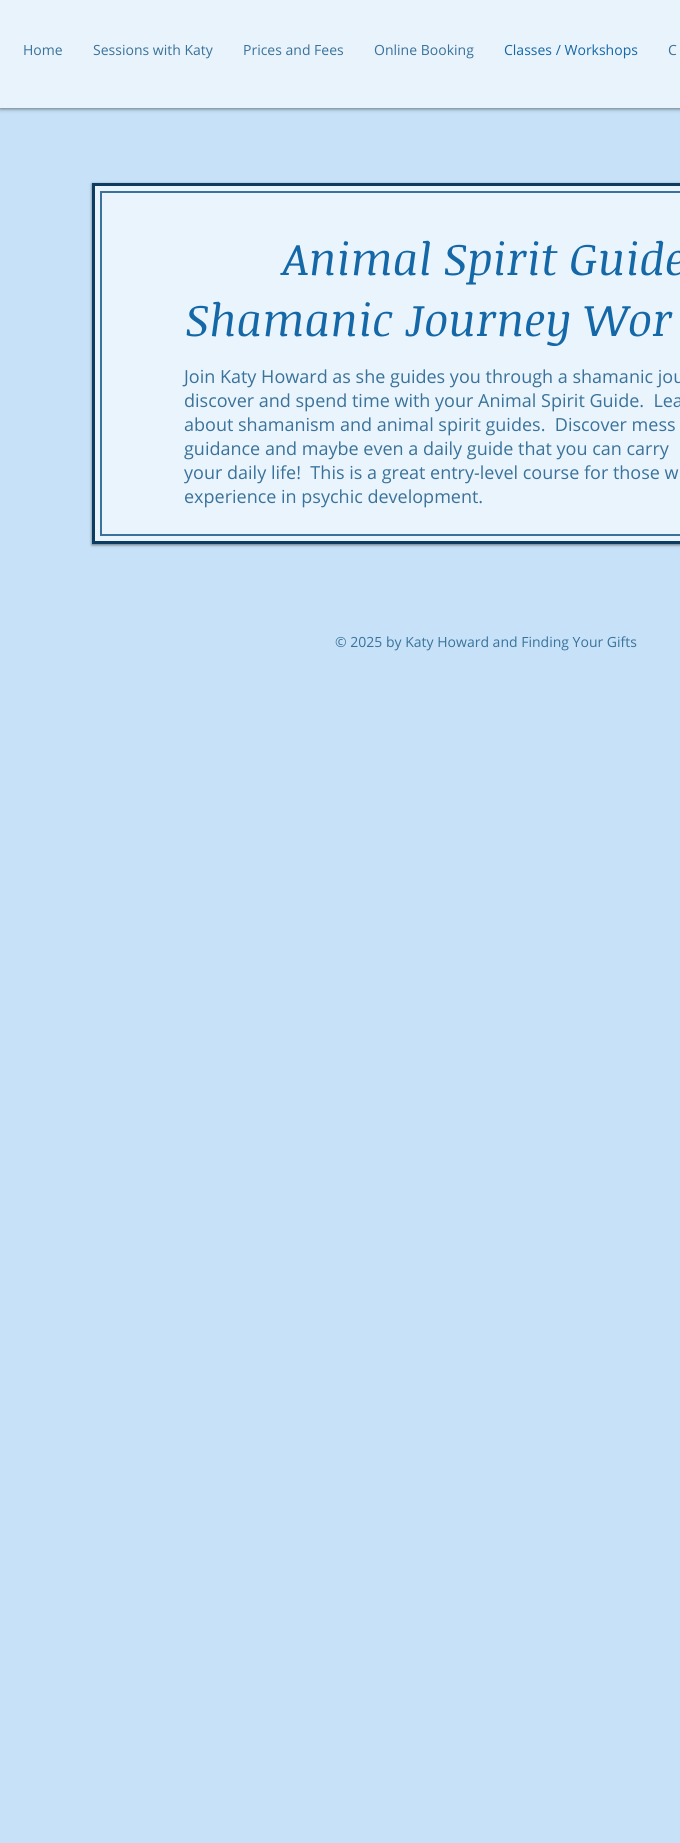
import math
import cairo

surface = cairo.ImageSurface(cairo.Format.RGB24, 680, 1843)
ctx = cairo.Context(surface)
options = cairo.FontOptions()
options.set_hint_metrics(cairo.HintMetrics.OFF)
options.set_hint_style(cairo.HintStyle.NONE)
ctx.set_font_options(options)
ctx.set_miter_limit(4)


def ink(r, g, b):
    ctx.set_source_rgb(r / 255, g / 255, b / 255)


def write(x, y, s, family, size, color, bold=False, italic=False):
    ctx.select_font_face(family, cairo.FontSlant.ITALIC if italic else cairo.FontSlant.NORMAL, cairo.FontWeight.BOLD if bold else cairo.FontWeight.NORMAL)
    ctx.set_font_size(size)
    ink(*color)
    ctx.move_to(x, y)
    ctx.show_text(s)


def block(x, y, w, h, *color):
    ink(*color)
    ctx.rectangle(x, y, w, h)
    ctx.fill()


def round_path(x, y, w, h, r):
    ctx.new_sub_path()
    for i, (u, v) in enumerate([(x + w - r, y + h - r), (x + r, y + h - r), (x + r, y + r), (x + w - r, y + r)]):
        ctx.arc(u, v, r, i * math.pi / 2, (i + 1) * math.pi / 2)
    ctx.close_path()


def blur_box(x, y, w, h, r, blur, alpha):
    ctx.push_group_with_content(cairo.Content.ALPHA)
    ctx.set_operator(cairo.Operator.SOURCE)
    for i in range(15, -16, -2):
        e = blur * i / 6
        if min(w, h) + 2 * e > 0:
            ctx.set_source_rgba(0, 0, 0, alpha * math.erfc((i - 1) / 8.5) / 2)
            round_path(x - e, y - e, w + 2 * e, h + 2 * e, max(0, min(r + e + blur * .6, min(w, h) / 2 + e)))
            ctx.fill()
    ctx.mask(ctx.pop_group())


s1 = dict(family="Open Sans", size=14, color=(57, 114, 155))
s2 = dict(family="Open Sans", size=14, color=(20, 104, 168))
s3 = dict(family="Noticia Text", size=45, color=(20, 104, 168), italic=True)
s4 = dict(family="Open Sans", size=18, color=(57, 114, 155))

ink(199, 226, 248)
ctx.paint()
ink(0, 0, 0)
blur_box(0, 0, 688, 108, 0, 2.5, 0.7)
block(0, 0, 680, 108, 233, 243, 252)
write(23, 55, "Home", **s1)
write(93, 55, "Sessions with Katy", **s1)
write(243, 55, "Prices and Fees", **s1)
write(374, 55, "Online Booking", **s1)
write(504, 55, "Classes / Workshops", **s2)
write(668, 55, "C", **s1)
ink(0, 0, 0)
blur_box(92, 184, 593, 361, 0, 1.5, 0.5)
ink(234, 244, 252)
ctx.rectangle(93.5, 184.5, 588, 358)
ctx.fill_preserve()
ink(12, 60, 96)
ctx.set_line_width(3)
ctx.stroke()
ctx.rectangle(101, 192, 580, 343)
ink(57, 114, 155)
ctx.set_line_width(2)
ctx.stroke()
write(283, 275, "Animal Spirit Guide", **s3)
write(186, 336, "Shamanic Journey Wor", **s3)
write(184, 383, "Join Katy Howard as she guides you through a shamanic jou", **s4)
write(184, 407, "discover and spend time with your Animal Spirit Guide.  Lea", **s4)
write(184, 431, "about shamanism and animal spirit guides.  Discover mess", **s4)
write(184, 455, "guidance and maybe even a daily guide that you can carry", **s4)
write(184, 479, "your daily life!  This is a great entry-level course for those w", **s4)
write(184, 503, "experience in psychic development.", **s4)
write(335, 647, "© 2025 by Katy Howard and Finding Your Gifts", **s1)
surface.write_to_png("screenshot.png")
